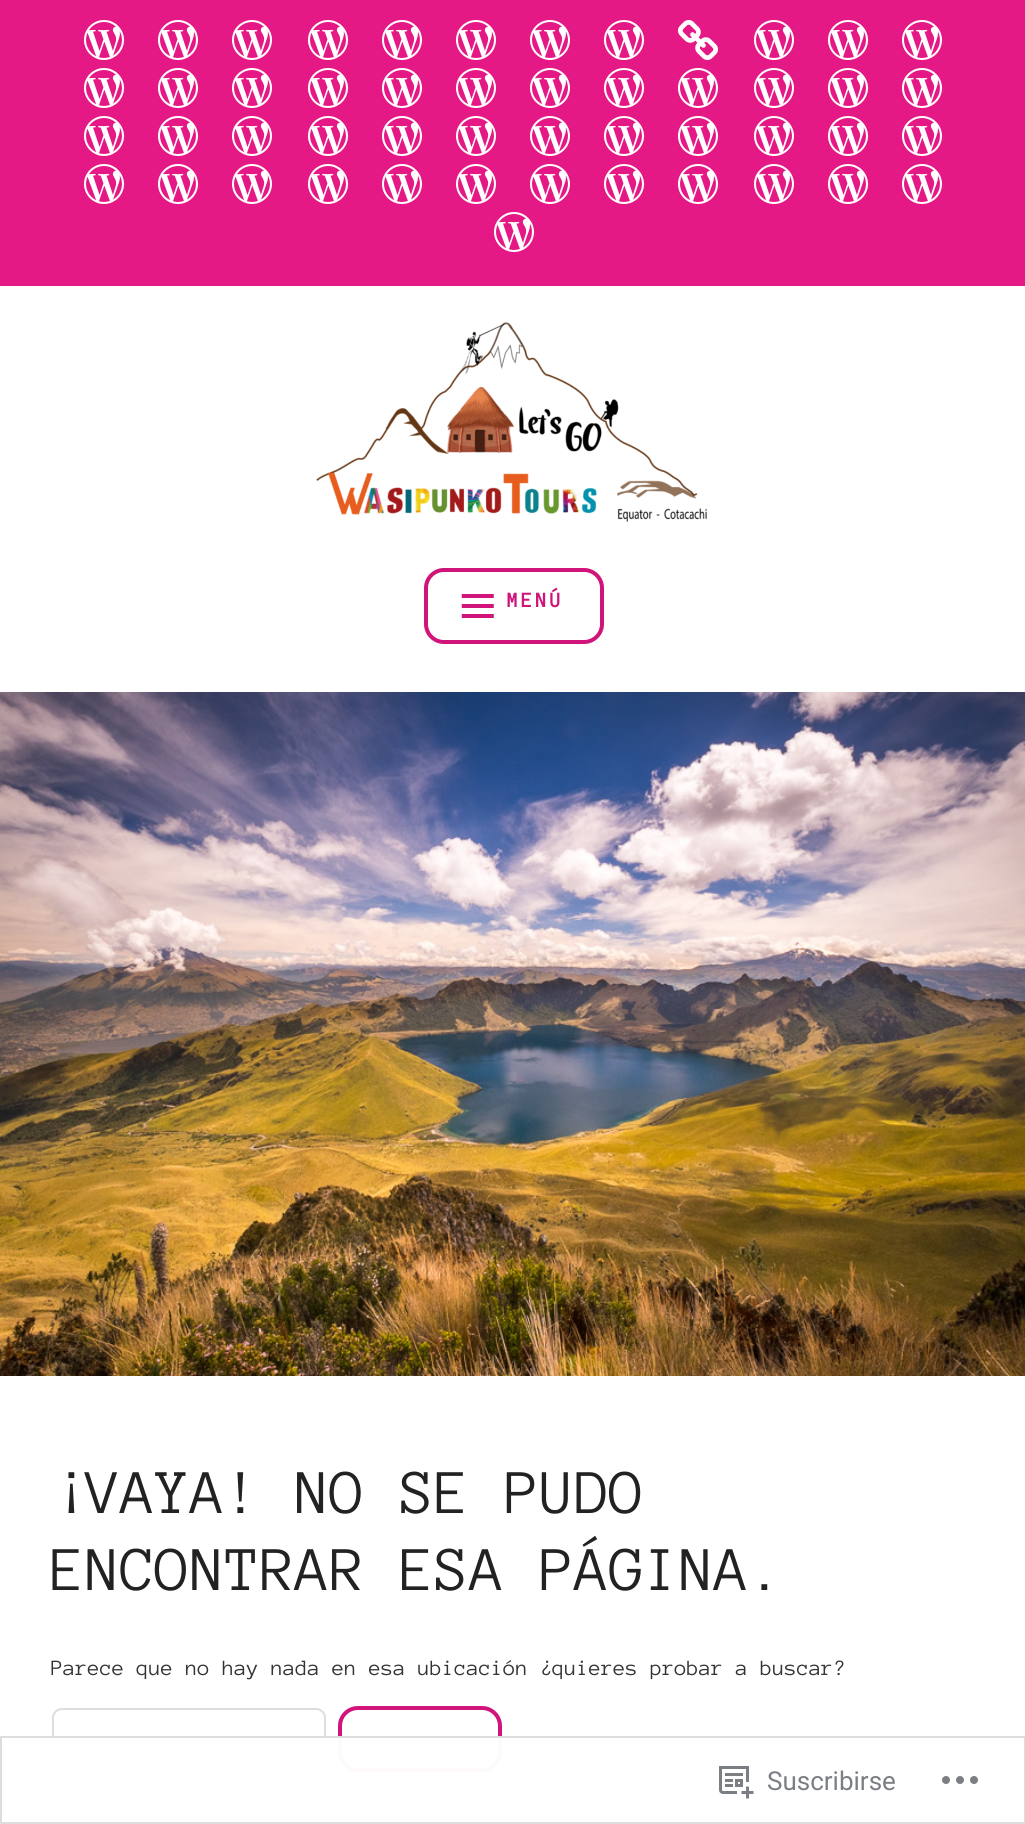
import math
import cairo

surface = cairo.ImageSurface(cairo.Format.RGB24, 1025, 1824)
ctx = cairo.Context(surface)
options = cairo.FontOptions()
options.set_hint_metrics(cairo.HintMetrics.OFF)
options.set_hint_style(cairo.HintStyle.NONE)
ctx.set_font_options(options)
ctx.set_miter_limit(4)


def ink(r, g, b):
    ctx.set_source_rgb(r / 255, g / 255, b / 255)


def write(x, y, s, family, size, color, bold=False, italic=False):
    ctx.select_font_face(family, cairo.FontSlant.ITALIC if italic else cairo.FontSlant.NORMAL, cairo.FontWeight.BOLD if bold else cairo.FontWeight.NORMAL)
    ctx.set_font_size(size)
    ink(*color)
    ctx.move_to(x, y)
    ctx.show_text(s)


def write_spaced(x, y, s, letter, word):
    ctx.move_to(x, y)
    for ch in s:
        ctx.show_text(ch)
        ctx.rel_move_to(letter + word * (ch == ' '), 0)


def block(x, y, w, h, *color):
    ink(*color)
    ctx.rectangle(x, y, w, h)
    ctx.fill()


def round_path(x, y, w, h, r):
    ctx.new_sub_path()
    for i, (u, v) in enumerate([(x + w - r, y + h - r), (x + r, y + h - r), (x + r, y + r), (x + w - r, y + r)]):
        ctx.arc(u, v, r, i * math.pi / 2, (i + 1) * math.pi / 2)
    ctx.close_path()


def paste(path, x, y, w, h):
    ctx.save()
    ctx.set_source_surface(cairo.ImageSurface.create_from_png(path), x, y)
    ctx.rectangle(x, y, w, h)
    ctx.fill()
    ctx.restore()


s1 = dict(family="Anonymous Pro", size=64, color=(34, 34, 34))
s2 = dict(family="Anonymous Pro", size=22.4, color=(51, 51, 51))
s3 = dict(family="Roboto", size=26, color=(123, 127, 133))

ink(255, 255, 255)
ctx.paint()
block(0, 0, 1025, 286, 229, 25, 134)
paste("pic1.png", 84, 20, 40, 40)
paste("pic1.png", 158, 20, 40, 40)
paste("pic1.png", 232, 20, 40, 40)
paste("pic1.png", 308, 20, 40, 40)
paste("pic1.png", 382, 20, 40, 40)
paste("pic1.png", 456, 20, 40, 40)
paste("pic1.png", 530, 20, 40, 40)
paste("pic1.png", 604, 20, 40, 40)
paste("pic2.png", 678, 20, 40, 40)
paste("pic1.png", 754, 20, 40, 40)
paste("pic1.png", 828, 20, 40, 40)
paste("pic1.png", 902, 20, 40, 40)
paste("pic1.png", 84, 68, 40, 40)
paste("pic1.png", 158, 68, 40, 40)
paste("pic1.png", 232, 68, 40, 40)
paste("pic1.png", 308, 68, 40, 40)
paste("pic1.png", 382, 68, 40, 40)
paste("pic1.png", 456, 68, 40, 40)
paste("pic1.png", 530, 68, 40, 40)
paste("pic1.png", 604, 68, 40, 40)
paste("pic1.png", 678, 68, 40, 40)
paste("pic1.png", 754, 68, 40, 40)
paste("pic1.png", 828, 68, 40, 40)
paste("pic1.png", 902, 68, 40, 40)
paste("pic1.png", 84, 116, 40, 40)
paste("pic1.png", 158, 116, 40, 40)
paste("pic1.png", 232, 116, 40, 40)
paste("pic1.png", 308, 116, 40, 40)
paste("pic1.png", 382, 116, 40, 40)
paste("pic1.png", 456, 116, 40, 40)
paste("pic1.png", 530, 116, 40, 40)
paste("pic1.png", 604, 116, 40, 40)
paste("pic1.png", 678, 116, 40, 40)
paste("pic1.png", 754, 116, 40, 40)
paste("pic1.png", 828, 116, 40, 40)
paste("pic1.png", 902, 116, 40, 40)
paste("pic1.png", 84, 164, 40, 40)
paste("pic1.png", 158, 164, 40, 40)
paste("pic1.png", 232, 164, 40, 40)
paste("pic1.png", 308, 164, 40, 40)
paste("pic1.png", 382, 164, 40, 40)
paste("pic1.png", 456, 164, 40, 40)
paste("pic1.png", 530, 164, 40, 40)
paste("pic1.png", 604, 164, 40, 40)
paste("pic1.png", 678, 164, 40, 40)
paste("pic1.png", 754, 164, 40, 40)
paste("pic1.png", 828, 164, 40, 40)
paste("pic1.png", 902, 164, 40, 40)
paste("pic1.png", 494, 212, 40, 40)
paste("pic3.png", 316, 322, 391, 200)
round_path(426, 570, 176, 72, 18)
ink(208, 20, 121)
ctx.set_line_width(4)
ctx.stroke()
paste("pic4.png", 461, 594, 33, 24)
ctx.select_font_face("Anonymous Pro", cairo.FontSlant.NORMAL, cairo.FontWeight.BOLD)
ctx.set_font_size(22.4)
write_spaced(507, 607, "MENÚ", 2, 0)
paste("pic5.png", 0, 692, 1025, 684)
write(51, 1513, "¡VAYA! NO SE PUDO", **s1)
write(51, 1590, "ENCONTRAR ESA PÁGINA.", **s1)
write(51, 1675, "Parece que no hay nada en esa ubicación ¿quieres probar a buscar?", **s2)
round_path(53, 1709, 272, 60, 9)
ink(221, 221, 221)
ctx.set_line_width(2)
ctx.stroke()
round_path(340, 1708, 160, 62, 18)
ink(208, 20, 121)
ctx.set_line_width(4)
ctx.stroke()
ctx.set_source_rgba(1, 1, 1, 0.98)
ctx.rectangle(52, 1736, 450, 36)
ctx.fill()
ctx.rectangle(1, 1737, 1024, 86)
ctx.set_source_rgba(0.863, 0.863, 0.871, 0.98)
ctx.set_line_width(2)
ctx.stroke()
paste("pic6.png", 719, 1766, 35, 33)
write(767, 1790, "Suscribirse", **s3)
paste("pic7.png", 942, 1776, 36, 8)
surface.write_to_png("screenshot.png")
